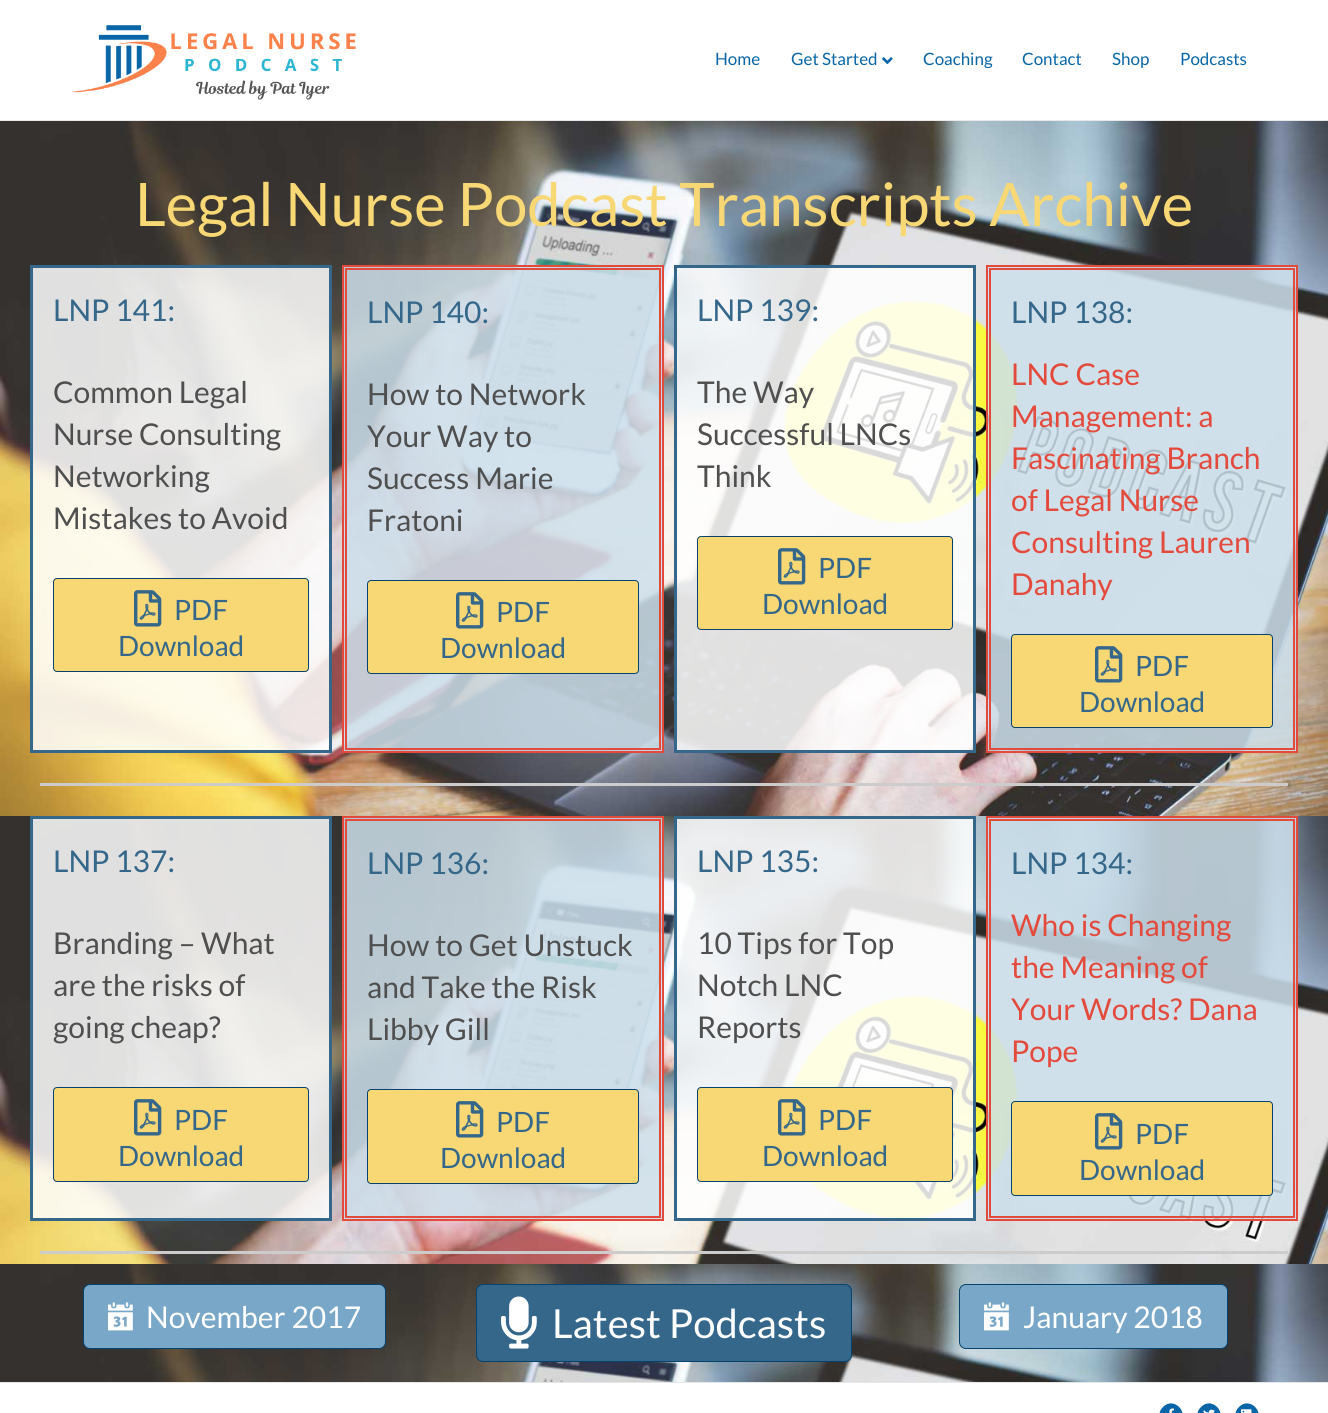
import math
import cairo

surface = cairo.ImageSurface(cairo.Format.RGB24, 1328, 1413)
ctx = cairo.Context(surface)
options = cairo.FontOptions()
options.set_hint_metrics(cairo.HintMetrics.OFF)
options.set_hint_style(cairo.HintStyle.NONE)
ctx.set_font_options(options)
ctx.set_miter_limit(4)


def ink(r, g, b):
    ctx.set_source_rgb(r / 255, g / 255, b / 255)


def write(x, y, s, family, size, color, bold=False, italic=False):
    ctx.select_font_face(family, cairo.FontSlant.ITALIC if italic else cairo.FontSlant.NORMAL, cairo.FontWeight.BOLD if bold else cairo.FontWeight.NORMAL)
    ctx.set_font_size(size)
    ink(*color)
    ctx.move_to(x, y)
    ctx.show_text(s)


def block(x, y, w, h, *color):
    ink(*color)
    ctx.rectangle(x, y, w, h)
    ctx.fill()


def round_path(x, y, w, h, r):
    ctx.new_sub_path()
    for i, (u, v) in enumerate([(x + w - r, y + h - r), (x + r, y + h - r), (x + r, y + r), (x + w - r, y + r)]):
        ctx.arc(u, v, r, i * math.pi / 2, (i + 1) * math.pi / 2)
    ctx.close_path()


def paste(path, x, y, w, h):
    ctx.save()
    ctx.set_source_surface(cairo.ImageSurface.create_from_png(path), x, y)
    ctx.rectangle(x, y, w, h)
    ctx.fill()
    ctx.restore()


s1 = dict(family="Lato", size=17, color=(8, 101, 167))
s2 = dict(family="Lato", size=60, color=(248, 215, 117))
s3 = dict(family="Lato", size=30, color=(52, 103, 138))
s4 = dict(family="Lato", size=30, color=(79, 79, 79))
s5 = dict(family="Lato", size=28, color=(52, 103, 138))
s6 = dict(family="Lato", size=30, color=(228, 74, 60))
s7 = dict(family="Lato", size=30, color=(255, 255, 255))
s8 = dict(family="Lato", size=40, color=(255, 255, 255))

ink(255, 255, 255)
ctx.paint()
block(0, 120, 1328, 1, 232, 232, 232)
paste("pic1.png", 71, 25, 285, 75)
write(715, 65, "Home", **s1)
write(791, 65, "Get Started", **s1)
paste("pic2.png", 882, 57, 11, 7)
write(923, 65, "Coaching", **s1)
write(1022, 65, "Contact", **s1)
write(1112, 65, "Shop", **s1)
write(1180, 65, "Podcasts", **s1)
paste("pic3.png", 0, 121, 1328, 695)
write(135, 226, "Legal Nurse Podcast Transcripts Archive", **s2)
ctx.set_source_rgba(1, 1, 1, 0.85)
ctx.rectangle(31.5, 266.5, 299, 485)
ctx.fill_preserve()
ink(52, 103, 138)
ctx.set_line_width(3)
ctx.stroke()
write(53, 321, "LNP 141:", **s3)
write(53, 403, "Common Legal", **s4)
write(53, 445, "Nurse Consulting", **s4)
write(53, 487, "Networking", **s4)
write(53, 529, "Mistakes to Avoid", **s4)
ink(248, 215, 117)
round_path(53.5, 578.5, 255, 93, 3.5)
ctx.fill_preserve()
ink(5, 66, 109)
ctx.set_line_width(1)
ctx.stroke()
paste("pic4.png", 134, 590, 28, 37)
write(174, 620, "PDF", **s5)
write(118, 656, "Download", **s5)
ctx.set_source_rgba(0.8, 0.875, 0.922, 0.85)
ctx.rectangle(343, 266, 320, 486)
ctx.fill_preserve()
ink(228, 74, 60)
ctx.set_line_width(2)
ctx.stroke()
ctx.rectangle(346, 269, 314, 480)
ctx.stroke()
write(367, 323, "LNP 140:", **s3)
write(367, 405, "How to Network", **s4)
write(367, 447, "Your Way to", **s4)
write(367, 489, "Success Marie", **s4)
write(367, 531, "Fratoni", **s4)
ink(248, 215, 117)
round_path(367.5, 580.5, 271, 93, 3.5)
ctx.fill_preserve()
ink(5, 66, 109)
ctx.set_line_width(1)
ctx.stroke()
paste("pic4.png", 456, 592, 28, 37)
write(496, 622, "PDF", **s5)
write(440, 658, "Download", **s5)
ctx.set_source_rgba(1, 1, 1, 0.85)
ctx.rectangle(675.5, 266.5, 299, 485)
ctx.fill_preserve()
ink(52, 103, 138)
ctx.set_line_width(3)
ctx.stroke()
write(697, 321, "LNP 139:", **s3)
write(697, 403, "The Way", **s4)
write(697, 445, "Successful LNCs", **s4)
write(697, 487, "Think", **s4)
ink(248, 215, 117)
round_path(697.5, 536.5, 255, 93, 3.5)
ctx.fill_preserve()
ink(5, 66, 109)
ctx.set_line_width(1)
ctx.stroke()
paste("pic4.png", 778, 548, 28, 37)
write(818, 578, "PDF", **s5)
write(762, 614, "Download", **s5)
ctx.set_source_rgba(0.8, 0.875, 0.922, 0.85)
ctx.rectangle(987, 266, 310, 486)
ctx.fill_preserve()
ink(228, 74, 60)
ctx.set_line_width(2)
ctx.stroke()
ctx.rectangle(990, 269, 304, 480)
ctx.stroke()
write(1011, 323, "LNP 138:", **s3)
write(1011, 385, "LNC Case", **s6)
write(1011, 427, "Management: a", **s6)
write(1011, 469, "Fascinating Branch", **s6)
write(1011, 511, "of Legal Nurse", **s6)
write(1011, 553, "Consulting Lauren", **s6)
write(1011, 595, "Danahy", **s6)
ink(248, 215, 117)
round_path(1011.5, 634.5, 261, 93, 3.5)
ctx.fill_preserve()
ink(5, 66, 109)
ctx.set_line_width(1)
ctx.stroke()
paste("pic4.png", 1095, 646, 28, 37)
write(1135, 676, "PDF", **s5)
write(1079, 712, "Download", **s5)
block(40, 783, 1248, 3, 204, 204, 204)
paste("pic5.png", 0, 816, 1328, 448)
ctx.set_source_rgba(1, 1, 1, 0.85)
ctx.rectangle(31.5, 817.5, 299, 402)
ctx.fill_preserve()
ink(52, 103, 138)
ctx.set_line_width(3)
ctx.stroke()
write(53, 872, "LNP 137:", **s3)
write(53, 954, "Branding – What", **s4)
write(53, 996, "are the risks of", **s4)
write(53, 1038, "going cheap?", **s4)
ink(248, 215, 117)
round_path(53.5, 1087.5, 255, 94, 3.5)
ctx.fill_preserve()
ink(5, 66, 109)
ctx.set_line_width(1)
ctx.stroke()
paste("pic4.png", 134, 1099, 28, 37)
write(174, 1130, "PDF", **s5)
write(118, 1166, "Download", **s5)
ctx.set_source_rgba(0.8, 0.875, 0.922, 0.85)
ctx.rectangle(343, 817, 320, 403)
ctx.fill_preserve()
ink(228, 74, 60)
ctx.set_line_width(2)
ctx.stroke()
ctx.rectangle(346, 820, 314, 397)
ctx.stroke()
write(367, 874, "LNP 136:", **s3)
write(367, 956, "How to Get Unstuck", **s4)
write(367, 998, "and Take the Risk", **s4)
write(367, 1040, "Libby Gill", **s4)
ink(248, 215, 117)
round_path(367.5, 1089.5, 271, 94, 3.5)
ctx.fill_preserve()
ink(5, 66, 109)
ctx.set_line_width(1)
ctx.stroke()
paste("pic4.png", 456, 1101, 28, 37)
write(496, 1132, "PDF", **s5)
write(440, 1168, "Download", **s5)
ctx.set_source_rgba(1, 1, 1, 0.85)
ctx.rectangle(675.5, 817.5, 299, 402)
ctx.fill_preserve()
ink(52, 103, 138)
ctx.set_line_width(3)
ctx.stroke()
write(697, 872, "LNP 135:", **s3)
write(697, 954, "10 Tips for Top", **s4)
write(697, 996, "Notch LNC", **s4)
write(697, 1038, "Reports", **s4)
ink(248, 215, 117)
round_path(697.5, 1087.5, 255, 94, 3.5)
ctx.fill_preserve()
ink(5, 66, 109)
ctx.set_line_width(1)
ctx.stroke()
paste("pic4.png", 778, 1099, 28, 37)
write(818, 1130, "PDF", **s5)
write(762, 1166, "Download", **s5)
ctx.set_source_rgba(0.8, 0.875, 0.922, 0.85)
ctx.rectangle(987, 817, 310, 403)
ctx.fill_preserve()
ink(228, 74, 60)
ctx.set_line_width(2)
ctx.stroke()
ctx.rectangle(990, 820, 304, 397)
ctx.stroke()
write(1011, 874, "LNP 134:", **s3)
write(1011, 936, "Who is Changing", **s6)
write(1011, 978, "the Meaning of", **s6)
write(1011, 1020, "Your Words? Dana", **s6)
write(1011, 1062, "Pope", **s6)
ink(248, 215, 117)
round_path(1011.5, 1101.5, 261, 94, 3.5)
ctx.fill_preserve()
ink(5, 66, 109)
ctx.set_line_width(1)
ctx.stroke()
paste("pic4.png", 1095, 1113, 28, 37)
write(1135, 1144, "PDF", **s5)
write(1079, 1180, "Download", **s5)
block(40, 1251, 1248, 3, 204, 204, 204)
paste("pic6.png", 0, 1264, 1328, 118)
ink(120, 167, 200)
round_path(83.5, 1284.5, 302, 64, 6.5)
ctx.fill_preserve()
ink(5, 66, 109)
ctx.stroke()
paste("pic7.png", 108, 1302, 25, 29)
write(146, 1328, "November 2017", **s7)
ink(52, 103, 138)
round_path(476.5, 1284.5, 375, 77, 6.5)
ctx.fill_preserve()
ink(5, 66, 109)
ctx.stroke()
paste("pic8.png", 501, 1296, 36, 53)
write(552, 1338, "Latest Podcasts", **s8)
ink(120, 167, 200)
round_path(959.5, 1284.5, 268, 64, 6.5)
ctx.fill_preserve()
ink(5, 66, 109)
ctx.stroke()
paste("pic7.png", 984, 1302, 25, 29)
write(1023, 1328, "January 2018", **s7)
block(0, 1382, 1328, 1, 230, 230, 230)
ink(8, 101, 167)
ctx.new_path()
ctx.move_to(1163, 1407)
ctx.curve_to(1173.5, 1396, 1190, 1412.5, 1179, 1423)
ctx.curve_to(1168.5, 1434, 1152, 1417.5, 1163, 1407)
ctx.close_path()
ctx.fill()
paste("pic9.png", 1169, 1408, 5, 5)
ctx.new_path()
ctx.move_to(1201, 1407)
ctx.curve_to(1211.5, 1396, 1228, 1412.5, 1217, 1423)
ctx.curve_to(1206.5, 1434, 1190, 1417.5, 1201, 1407)
ctx.close_path()
ctx.fill()
paste("pic10.png", 1203, 1409, 12, 4)
ctx.new_path()
ctx.move_to(1239, 1407)
ctx.curve_to(1249.5, 1396, 1266, 1412.5, 1255, 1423)
ctx.curve_to(1244.5, 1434, 1228, 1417.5, 1239, 1407)
ctx.close_path()
ctx.fill()
paste("pic11.png", 1241, 1409, 11, 4)
surface.write_to_png("screenshot.png")
